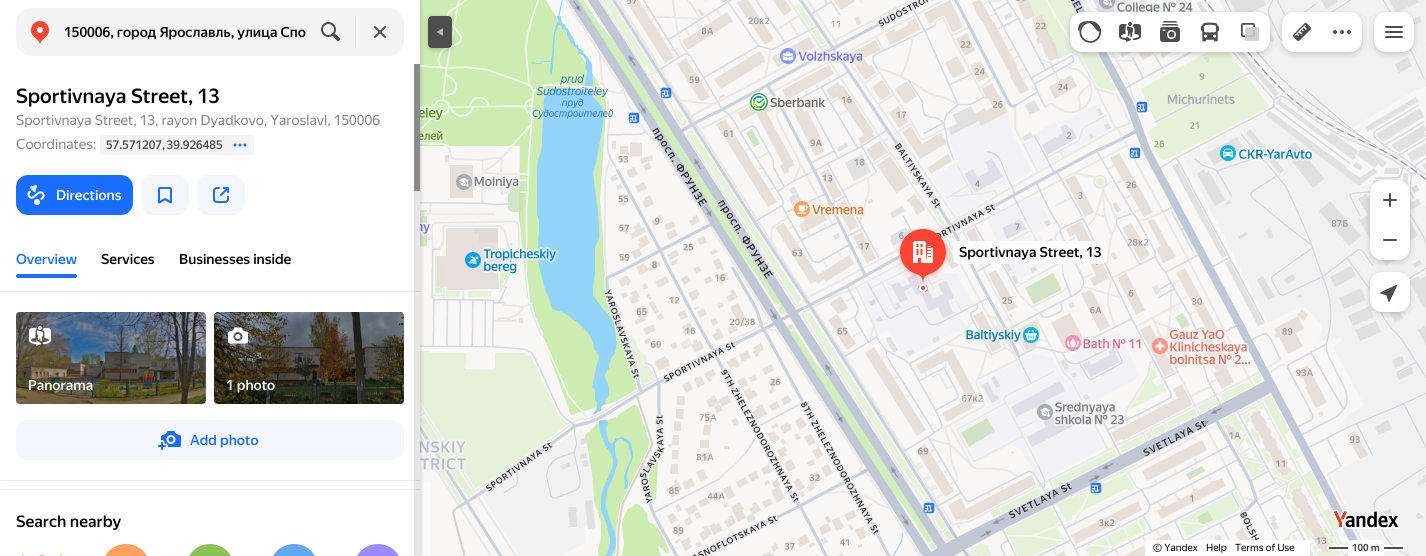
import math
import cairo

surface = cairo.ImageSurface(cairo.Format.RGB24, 1426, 556)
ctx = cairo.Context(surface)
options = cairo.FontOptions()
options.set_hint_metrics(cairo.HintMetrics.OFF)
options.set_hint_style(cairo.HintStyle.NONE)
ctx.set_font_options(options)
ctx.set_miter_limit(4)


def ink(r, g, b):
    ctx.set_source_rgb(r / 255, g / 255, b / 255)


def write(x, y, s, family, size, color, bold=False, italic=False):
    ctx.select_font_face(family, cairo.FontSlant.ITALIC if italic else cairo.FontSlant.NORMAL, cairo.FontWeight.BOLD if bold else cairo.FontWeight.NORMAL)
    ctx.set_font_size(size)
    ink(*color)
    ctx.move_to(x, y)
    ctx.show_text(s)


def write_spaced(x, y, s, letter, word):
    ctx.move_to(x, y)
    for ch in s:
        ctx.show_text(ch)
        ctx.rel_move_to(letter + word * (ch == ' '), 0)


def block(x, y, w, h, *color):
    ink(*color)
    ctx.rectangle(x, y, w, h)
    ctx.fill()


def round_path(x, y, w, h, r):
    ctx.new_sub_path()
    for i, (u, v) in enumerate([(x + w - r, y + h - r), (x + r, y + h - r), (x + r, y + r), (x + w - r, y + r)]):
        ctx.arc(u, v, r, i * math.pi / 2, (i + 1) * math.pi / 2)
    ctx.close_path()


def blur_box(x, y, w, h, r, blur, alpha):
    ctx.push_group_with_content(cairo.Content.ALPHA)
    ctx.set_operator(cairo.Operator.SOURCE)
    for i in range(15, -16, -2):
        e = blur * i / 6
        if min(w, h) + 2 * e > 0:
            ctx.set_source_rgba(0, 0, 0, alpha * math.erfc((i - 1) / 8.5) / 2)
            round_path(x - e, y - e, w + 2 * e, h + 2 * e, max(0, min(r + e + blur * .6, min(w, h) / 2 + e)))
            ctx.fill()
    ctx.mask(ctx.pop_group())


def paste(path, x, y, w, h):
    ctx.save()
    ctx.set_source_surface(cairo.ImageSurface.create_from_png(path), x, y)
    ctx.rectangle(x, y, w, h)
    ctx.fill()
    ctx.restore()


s1 = dict(family="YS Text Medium", size=14, color=(0, 0, 0))
s2 = dict(family="YS Text Medium", size=20, color=(0, 0, 0))
s3 = dict(family="YS Text", size=14, color=(135, 135, 135))
s4 = dict(family="YS Text Medium", size=14, color=(255, 255, 255))
s5 = dict(family="YS Text Medium", size=14, color=(25, 109, 255))
s6 = dict(family="YS Text Medium", size=16, color=(0, 0, 0))
s7 = dict(family="YS Text", size=10, color=(0, 0, 0))
s8 = dict(family="YS Text", size=10, color=(77, 77, 77), bold=True)

ink(255, 255, 255)
ctx.paint()
paste("pic1.png", 420, 482, 11, 74)
paste("pic28.png", 420, 0, 146, 226)
paste("pic33.png", 420, 226, 146, 256)
ink(0, 0, 0)
blur_box(2, 0, 420, 556, 0, 1, 0.1)
blur_box(428, 18, 24, 32, 4, 3, 0.2)
block(1, 0, 419, 556, 255, 255, 255)
ink(244, 244, 244)
round_path(16, 8, 388, 48, 16)
ctx.fill()
paste("pic2.png", 31, 21, 18, 23)
write(64, 37, "150006, город Ярославль, улица Спо", **s1)
paste("pic3.png", 321, 22, 19, 19)
block(355, 16, 1, 32, 224, 224, 224)
paste("pic4.png", 374, 26, 12, 12)
paste("pic30.png", 822, 0, 256, 226)
paste("pic31.png", 1078, 0, 256, 226)
ink(0, 0, 0)
blur_box(1070, 14, 200, 40, 12, 3, 0.2)
ink(255, 255, 255)
ctx.new_path()
ctx.move_to(1082, 12)
ctx.line_to(1110, 12)
ctx.line_to(1110, 52)
ctx.line_to(1082, 52)
ctx.curve_to(1075.5, 52, 1070, 46.5, 1070, 40)
ctx.line_to(1070, 24)
ctx.curve_to(1070, 17.5, 1075.5, 12, 1082, 12)
ctx.close_path()
ctx.fill()
paste("pic5.png", 1078, 21, 24, 22)
block(1110, 12, 120, 40, 255, 255, 255)
paste("pic6.png", 1119, 22, 22, 20)
ctx.new_path()
ctx.move_to(1230, 12)
ctx.line_to(1258, 12)
ctx.curve_to(1264.5, 12, 1270, 17.5, 1270, 24)
ctx.line_to(1270, 40)
ctx.curve_to(1270, 46.5, 1264.5, 52, 1258, 52)
ctx.line_to(1230, 52)
ctx.close_path()
ctx.fill()
paste("pic7.png", 1241, 23, 18, 18)
paste("pic8.png", 1160, 21, 20, 21)
paste("pic9.png", 1201, 22, 18, 20)
paste("pic32.png", 1334, 0, 92, 226)
ink(0, 0, 0)
blur_box(1282, 14, 80, 40, 12, 3, 0.2)
ink(255, 255, 255)
ctx.new_path()
ctx.move_to(1294, 12)
ctx.line_to(1322, 12)
ctx.line_to(1322, 52)
ctx.line_to(1294, 52)
ctx.curve_to(1287.5, 52, 1282, 46.5, 1282, 40)
ctx.line_to(1282, 24)
ctx.curve_to(1282, 17.5, 1287.5, 12, 1294, 12)
ctx.close_path()
ctx.fill()
paste("pic10.png", 1293, 23, 18, 18)
ctx.new_path()
ctx.move_to(1322, 12)
ctx.line_to(1350, 12)
ctx.curve_to(1356.5, 12, 1362, 17.5, 1362, 24)
ctx.line_to(1362, 40)
ctx.curve_to(1362, 46.5, 1356.5, 52, 1350, 52)
ctx.line_to(1322, 52)
ctx.close_path()
ctx.fill()
paste("pic11.png", 1333, 30, 18, 4)
ink(0, 0, 0)
blur_box(1374, 14, 40, 40, 12, 3, 0.2)
ink(255, 255, 255)
round_path(1374, 12, 40, 40, 12)
ctx.fill()
paste("pic12.png", 1385, 26, 18, 12)
paste("pic37.png", 1334, 226, 92, 256)
ink(0, 0, 0)
blur_box(1370, 182, 40, 80, 12, 3, 0.2)
ink(255, 255, 255)
ctx.new_path()
ctx.move_to(1382, 180)
ctx.line_to(1398, 180)
ctx.curve_to(1404.5, 180, 1410, 185.5, 1410, 192)
ctx.line_to(1410, 220)
ctx.line_to(1370, 220)
ctx.line_to(1370, 192)
ctx.curve_to(1370, 185.5, 1375.5, 180, 1382, 180)
ctx.close_path()
ctx.fill()
paste("pic13.png", 1383, 193, 14, 14)
ctx.new_path()
ctx.move_to(1370, 220)
ctx.line_to(1410, 220)
ctx.line_to(1410, 248)
ctx.curve_to(1410, 254.5, 1404.5, 260, 1398, 260)
ctx.line_to(1382, 260)
ctx.curve_to(1375.5, 260, 1370, 254.5, 1370, 248)
ctx.close_path()
ctx.fill()
paste("pic14.png", 1383, 239, 14, 2)
ink(0, 0, 0)
blur_box(1370, 274, 40, 40, 12, 3, 0.2)
ink(255, 255, 255)
round_path(1370, 272, 40, 40, 12)
ctx.fill()
paste("pic15.png", 1380, 284, 18, 18)
ink(77, 77, 77)
round_path(428, 16, 24, 32, 4)
ctx.fill()
paste("pic16.png", 437, 28, 6, 8)
write(16, 103, "Sportivnaya Street, 13", **s2)
write(16, 125, "Sportivnaya Street, 13, rayon Dyadkovo, Yaroslavl, 150006", **s3)
write(16, 149, "Coordinates:", **s3)
ink(244, 244, 244)
round_path(100, 135, 154, 20, 2)
ctx.fill()
ctx.select_font_face("YS Text Medium")
ctx.set_font_size(12)
ink(77, 77, 77)
write_spaced(106, 149, "57.571207, 39.926485", 0, -1)
paste("pic17.png", 233, 143, 14, 4)
ink(25, 109, 255)
round_path(16, 175, 117, 40, 12)
ctx.fill()
paste("pic18.png", 27, 185, 18, 20)
write(56, 200, "Directions", **s4)
ink(243, 246, 252)
round_path(141, 175, 48, 40, 12)
ctx.fill()
paste("pic19.png", 158, 187, 14, 17)
round_path(197, 175, 48, 40, 12)
ctx.fill()
paste("pic20.png", 213, 187, 16, 16)
write(16, 264, "Overview", **s5)
write(101, 264, "Services", **s1)
write(179, 264, "Businesses inside", **s1)
ink(25, 109, 255)
round_path(16, 274, 61, 4, 2)
ctx.fill()
block(0, 291, 420, 1, 235, 235, 235)
block(0, 480, 420, 1, 235, 235, 235)
paste("pic21.png", 16, 312, 190, 92)
ctx.set_source_rgba(0, 0, 0, 0.3)
round_path(16, 312, 190, 92, 4)
ctx.fill()
paste("pic22.png", 29, 326, 22, 20)
write(28, 390, "Panorama", **s4)
paste("pic23.png", 214, 312, 190, 92)
ctx.set_source_rgba(0, 0, 0, 0.3)
round_path(214, 312, 190, 92, 4)
ctx.fill()
paste("pic24.png", 228, 327, 20, 17)
write(226, 390, "1 photo", **s4)
ink(243, 246, 252)
round_path(16, 420, 388, 40, 12)
ctx.fill()
paste("pic25.png", 158, 431, 23, 19)
write(190, 445, "Add photo", **s5)
block(0, 489, 420, 1, 235, 235, 235)
write(16, 527, "Search nearby", **s6)
paste("pic26.png", 21, 554, 42, 2)
ink(255, 161, 94)
ctx.new_path()
ctx.move_to(126, 544)
ctx.curve_to(139.5, 544, 150, 554.5, 150, 568)
ctx.line_to(150, 556)
ctx.line_to(102, 556)
ctx.line_to(102, 568)
ctx.curve_to(102, 554.5, 112.5, 544, 126, 544)
ctx.close_path()
ctx.fill()
ink(141, 194, 87)
ctx.new_path()
ctx.move_to(210, 544)
ctx.curve_to(223.5, 544, 234, 554.5, 234, 568)
ctx.line_to(234, 556)
ctx.line_to(186, 556)
ctx.line_to(186, 568)
ctx.curve_to(186, 554.5, 196.5, 544, 210, 544)
ctx.close_path()
ctx.fill()
ink(96, 168, 240)
ctx.new_path()
ctx.move_to(294, 544)
ctx.curve_to(307.5, 544, 318, 554.5, 318, 568)
ctx.line_to(318, 556)
ctx.line_to(270, 556)
ctx.line_to(270, 568)
ctx.curve_to(270, 554.5, 280.5, 544, 294, 544)
ctx.close_path()
ctx.fill()
ink(156, 137, 250)
ctx.new_path()
ctx.move_to(378, 544)
ctx.curve_to(391.5, 544, 402, 554.5, 402, 568)
ctx.line_to(402, 556)
ctx.line_to(354, 556)
ctx.line_to(354, 568)
ctx.curve_to(354, 554.5, 364.5, 544, 378, 544)
ctx.close_path()
ctx.fill()
block(414, 64, 6, 127, 138, 138, 138)
ctx.set_source_rgba(0, 0, 0, 0.1)
ctx.rectangle(414, 191, 6, 365)
ctx.fill()
paste("pic41.png", 1078, 482, 256, 74)
paste("pic42.png", 1334, 482, 92, 74)
paste("pic27.png", 1332, 509, 68, 21)
ink(255, 255, 255)
ctx.new_path()
ctx.move_to(1149, 540)
ctx.line_to(1306, 540)
ctx.curve_to(1308, 540, 1310, 542, 1310, 544)
ctx.line_to(1310, 556)
ctx.line_to(1145, 556)
ctx.line_to(1145, 544)
ctx.curve_to(1145, 542, 1147, 540, 1149, 540)
ctx.close_path()
ctx.fill()
write(1153, 551, "© Yandex", **s7)
write(1206, 551, "Help", **s7)
write(1235, 551, "Terms of Use", **s7)
ctx.set_source_rgba(1, 1, 1, 0.6)
round_path(1327, 545, 78, 6, 3)
ctx.fill()
ink(77, 77, 77)
round_path(1329, 547, 74, 2, 1)
ctx.fill()
ink(255, 255, 255)
ctx.new_path()
ctx.move_to(1352, 540)
ctx.line_to(1380, 540)
ctx.curve_to(1382, 540, 1384, 542, 1384, 544)
ctx.line_to(1384, 556)
ctx.line_to(1348, 556)
ctx.line_to(1348, 544)
ctx.curve_to(1348, 542, 1350, 540, 1352, 540)
ctx.close_path()
ctx.fill()
write(1352, 551, "100 m", **s8)
paste("pic29.png", 566, 0, 256, 226)
paste("pic34.png", 566, 226, 256, 256)
paste("pic35.png", 822, 226, 256, 256)
paste("pic36.png", 1078, 226, 256, 256)
paste("pic38.png", 431, 482, 135, 74)
paste("pic39.png", 566, 482, 256, 74)
paste("pic40.png", 822, 482, 256, 74)
paste("pic43.png", 896, 227, 54, 65)
paste("pic44.png", 913, 241, 20, 22)
ctx.set_source_rgba(1, 1, 1, 0.9)
round_path(953, 241, 154, 23, 6)
ctx.fill()
write(959, 257, "Sportivnaya Street, 13", **s1)
surface.write_to_png("screenshot.png")
